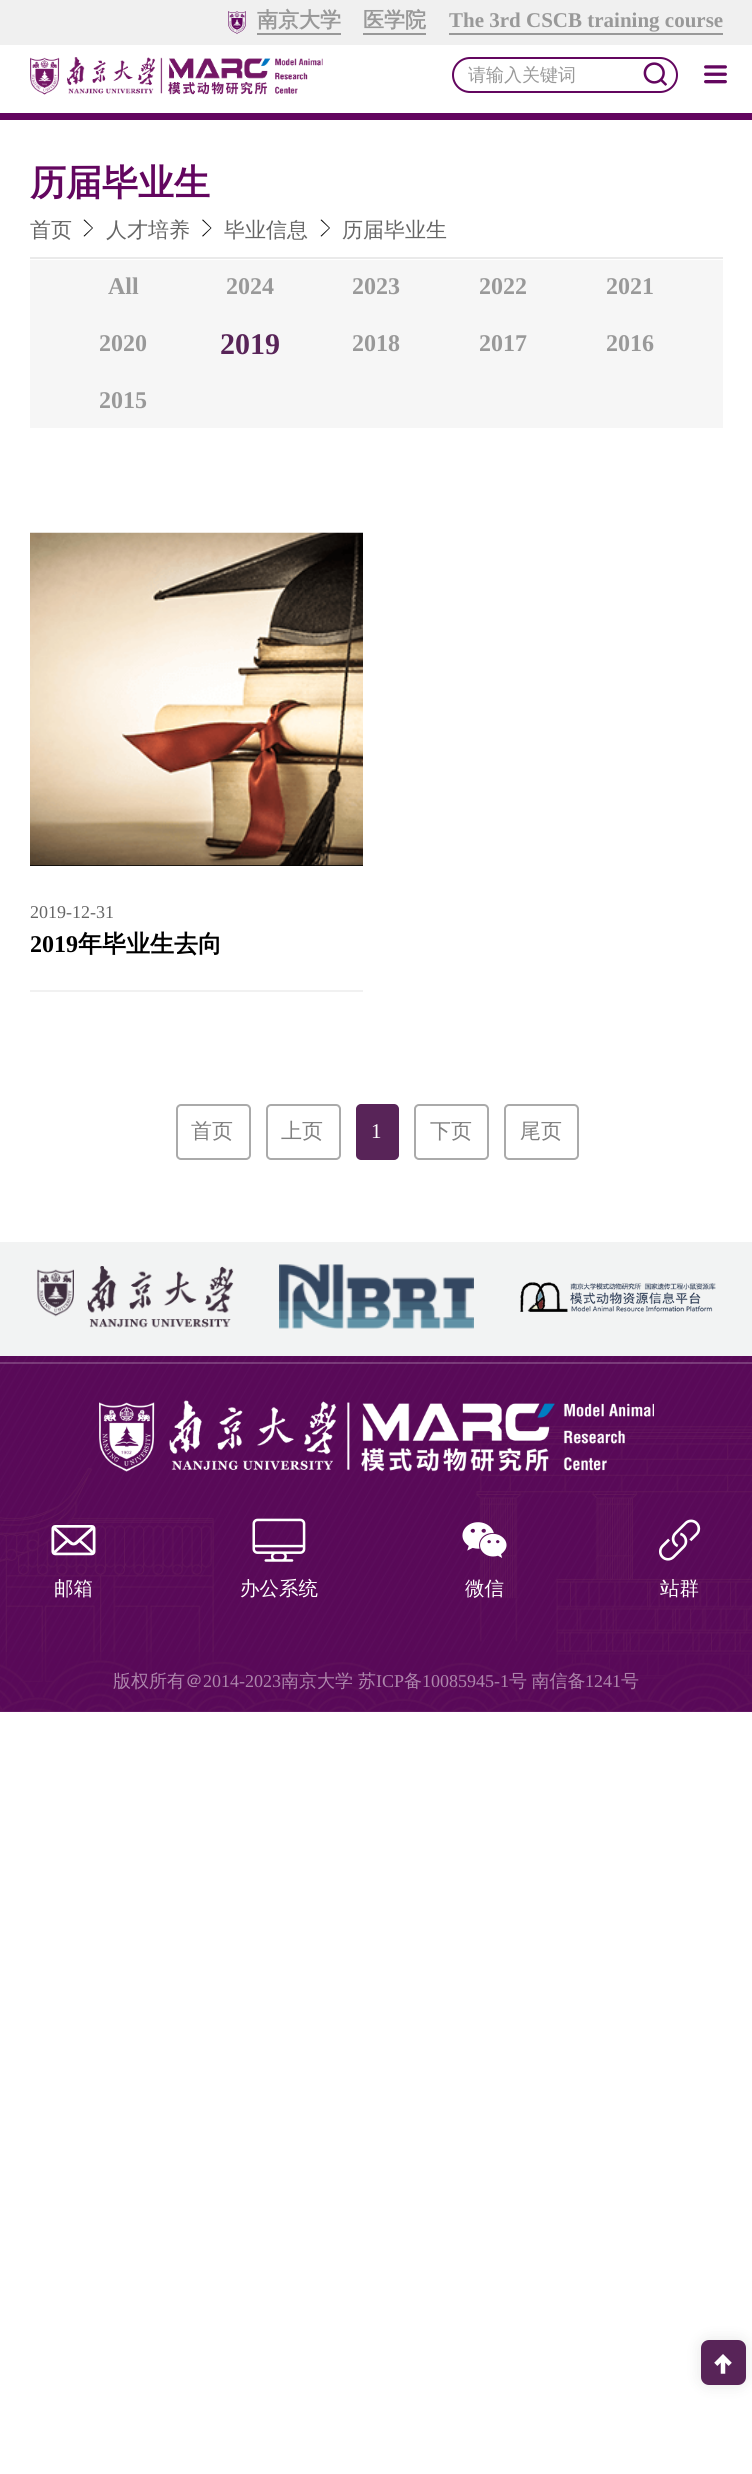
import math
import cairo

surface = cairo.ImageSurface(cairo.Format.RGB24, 752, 2474)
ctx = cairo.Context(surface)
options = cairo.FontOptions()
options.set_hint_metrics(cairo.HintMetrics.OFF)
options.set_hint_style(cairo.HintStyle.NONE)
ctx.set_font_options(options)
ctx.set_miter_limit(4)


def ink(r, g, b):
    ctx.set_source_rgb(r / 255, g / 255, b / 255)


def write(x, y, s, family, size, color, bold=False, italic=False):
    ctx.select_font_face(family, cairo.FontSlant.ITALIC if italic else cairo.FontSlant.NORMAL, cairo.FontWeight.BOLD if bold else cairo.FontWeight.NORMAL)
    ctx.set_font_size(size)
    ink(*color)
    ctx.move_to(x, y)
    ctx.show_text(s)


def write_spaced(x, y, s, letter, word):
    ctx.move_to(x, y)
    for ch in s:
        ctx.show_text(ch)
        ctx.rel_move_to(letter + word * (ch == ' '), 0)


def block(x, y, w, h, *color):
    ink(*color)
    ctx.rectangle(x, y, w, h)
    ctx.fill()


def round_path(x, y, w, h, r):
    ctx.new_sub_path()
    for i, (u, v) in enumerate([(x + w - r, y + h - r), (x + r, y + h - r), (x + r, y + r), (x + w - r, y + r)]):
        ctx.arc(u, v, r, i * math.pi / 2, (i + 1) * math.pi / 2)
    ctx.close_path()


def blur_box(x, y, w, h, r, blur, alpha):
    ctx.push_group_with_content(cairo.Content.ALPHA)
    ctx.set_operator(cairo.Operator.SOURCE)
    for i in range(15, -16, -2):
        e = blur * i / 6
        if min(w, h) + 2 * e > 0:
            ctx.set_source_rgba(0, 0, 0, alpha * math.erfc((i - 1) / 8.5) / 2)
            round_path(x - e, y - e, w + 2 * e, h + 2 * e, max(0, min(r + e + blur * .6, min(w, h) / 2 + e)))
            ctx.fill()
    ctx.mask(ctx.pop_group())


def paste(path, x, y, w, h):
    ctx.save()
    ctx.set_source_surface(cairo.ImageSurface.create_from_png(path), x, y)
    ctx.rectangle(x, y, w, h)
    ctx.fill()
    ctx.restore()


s1 = dict(family="WenQuanYi Zen Hei", size=21, color=(153, 153, 153), bold=True)
s2 = dict(family="Liberation Serif", size=21, color=(153, 153, 153), bold=True)
s3 = dict(family="WenQuanYi Zen Hei Medium", size=18, color=(153, 153, 153))
s4 = dict(family="WenQuanYi Zen Hei", size=36, color=(99, 6, 95), bold=True)
s5 = dict(family="WenQuanYi Zen Hei Medium", size=21, color=(102, 102, 102))
s6 = dict(family="Liberation Serif", size=24, color=(153, 153, 153), bold=True)
s7 = dict(family="Liberation Serif", size=30, color=(88, 36, 88), bold=True)
s8 = dict(family="Liberation Serif", size=18, color=(102, 102, 102))
s9 = dict(family="Liberation Serif", size=24, color=(0, 0, 0), bold=True)
s10 = dict(family="WenQuanYi Zen Hei", size=24, color=(0, 0, 0), bold=True)
s11 = dict(family="WenQuanYi Zen Hei Medium", size=21, color=(128, 128, 128))
s12 = dict(family="Liberation Serif", size=21, color=(255, 255, 255))
s13 = dict(family="WenQuanYi Zen Hei Medium", size=19.5, color=(255, 255, 255))
s14 = dict(family="WenQuanYi Zen Hei Medium", size=18, color=(173, 133, 172))
s15 = dict(family="Liberation Serif", size=18, color=(173, 133, 172))

ink(255, 255, 255)
ctx.paint()
block(0, 0, 752, 45, 240, 240, 240)
paste("pic1.png", 228, 11, 18, 23)
block(257, 33, 84, 2, 153, 153, 153)
write(257, 27, "南京大学", **s1)
block(363, 33, 63, 2, 153, 153, 153)
write(363, 27, "医学院", **s1)
block(449, 33, 274, 2, 153, 153, 153)
write(449, 27, "The 3rd CSCB training course", **s2)
block(0, 113, 752, 7, 99, 6, 95)
paste("pic2.png", 30, 57, 293, 38)
round_path(453, 58, 224, 34, 17)
ctx.stroke()
write(468, 81, "请输入关键词", **s3)
paste("pic3.png", 643, 62, 24, 24)
paste("pic4.png", 704, 65, 23, 19)
block(30, 257, 693, 2, 234, 234, 234)
write(30, 195, "历届毕业生", **s4)
write(30, 237, "首页", **s5)
ink(0, 0, 0)
ctx.new_path()
ctx.move_to(84.5, 219.5)
ctx.line_to(93, 228)
ctx.line_to(84.5, 236.5)
ctx.line_to(83.5, 236)
ctx.line_to(92, 228)
ctx.line_to(83.5, 220)
ctx.close_path()
ctx.fill()
write(106, 237, "人才培养", **s5)
ink(0, 0, 0)
ctx.new_path()
ctx.move_to(203, 219.5)
ctx.line_to(211.5, 228)
ctx.line_to(203, 236.5)
ctx.line_to(202, 236)
ctx.line_to(210.5, 228)
ctx.line_to(202, 220)
ctx.close_path()
ctx.fill()
write(224, 237, "毕业信息", **s5)
ink(0, 0, 0)
ctx.new_path()
ctx.move_to(321.5, 219.5)
ctx.line_to(330, 228)
ctx.line_to(321.5, 236.5)
ctx.line_to(320.5, 236)
ctx.line_to(329, 228)
ctx.line_to(320.5, 220)
ctx.close_path()
ctx.fill()
write(342, 237, "历届毕业生", **s5)
block(30, 260, 693, 168, 246, 246, 246)
write(108, 294, "All", **s6)
write(226, 294, "2024", **s6)
write(352, 294, "2023", **s6)
write(479, 294, "2022", **s6)
write(606, 294, "2021", **s6)
write(99, 351, "2020", **s6)
write(220, 354, "2019", **s7)
write(352, 351, "2018", **s6)
write(479, 351, "2017", **s6)
write(606, 351, "2016", **s6)
write(99, 408, "2015", **s6)
block(30, 990, 333, 2, 241, 241, 241)
block(30, 865, 333, 1, 0, 0, 0)
paste("pic5.png", 30, 532, 333, 334)
write(30, 918, "2019-12-31", **s8)
write(30, 952, "2019", **s9)
write(78, 952, "年毕业生去向", **s10)
round_path(177, 1105, 73, 54, 4)
ink(170, 170, 170)
ctx.stroke()
write(191, 1138, "首页", **s11)
round_path(267, 1105, 73, 54, 4)
ink(170, 170, 170)
ctx.stroke()
write(281, 1138, "上页", **s11)
ink(88, 36, 88)
round_path(357, 1105, 41, 54, 4)
ctx.fill_preserve()
ctx.stroke()
write(371, 1138, "1", **s12)
round_path(415, 1105, 73, 54, 4)
ink(170, 170, 170)
ctx.stroke()
write(430, 1138, "下页", **s11)
round_path(505, 1105, 73, 54, 4)
ink(170, 170, 170)
ctx.stroke()
write(520, 1138, "尾页", **s11)
block(0, 1242, 752, 114, 242, 243, 243)
paste("pic6.png", 37, 1266, 197, 62)
paste("pic7.png", 279, 1264, 195, 65)
paste("pic8.png", 520, 1282, 196, 30)
paste("pic9.png", 0, 1356, 752, 356)
ctx.set_source_rgba(0.349, 0.039, 0.349, 0.8)
ctx.rectangle(0, 1356, 752, 8)
ctx.fill()
ctx.set_source_rgba(1, 1, 1, 0.2)
ctx.rectangle(0, 1362, 752, 2)
ctx.fill()
ctx.set_source_rgba(0.349, 0.039, 0.349, 0.8)
ctx.rectangle(0, 1364, 752, 288)
ctx.fill()
paste("pic10.png", 99, 1400, 555, 72)
paste("pic11.png", 51, 1525, 45, 31)
write(54, 1595, "邮箱", **s13)
paste("pic12.png", 252, 1518, 54, 44)
write(240, 1595, "办公系统", **s13)
paste("pic13.png", 462, 1522, 45, 36)
write(465, 1595, "微信", **s13)
paste("pic14.png", 659, 1519, 42, 42)
write(660, 1595, "站群", **s13)
ctx.set_source_rgba(0.349, 0.039, 0.349, 0.9)
ctx.rectangle(0, 1652, 752, 60)
ctx.fill()
write(113, 1687, "版权所有＠", **s14)
write(203, 1687, "2014-2023", **s15)
write(281, 1687, "南京大学", **s14)
write(358, 1687, "苏", **s14)
write(376, 1687, "ICP", **s15)
write(404, 1687, "备", **s14)
write(422, 1687, "10085945-1", **s15)
ctx.select_font_face("WenQuanYi Zen Hei Medium")
write_spaced(509, 1687, "号 南信备", 0, -1)
write(585, 1687, "1241", **s15)
write(621, 1687, "号", **s14)
ink(0, 0, 0)
blur_box(701, 2340, 45, 45, 8, 7.5, 0.1)
ink(88, 36, 88)
round_path(701, 2340, 45, 45, 8)
ctx.fill()
paste("pic15.png", 714, 2354, 18, 20)
surface.write_to_png("screenshot.png")
